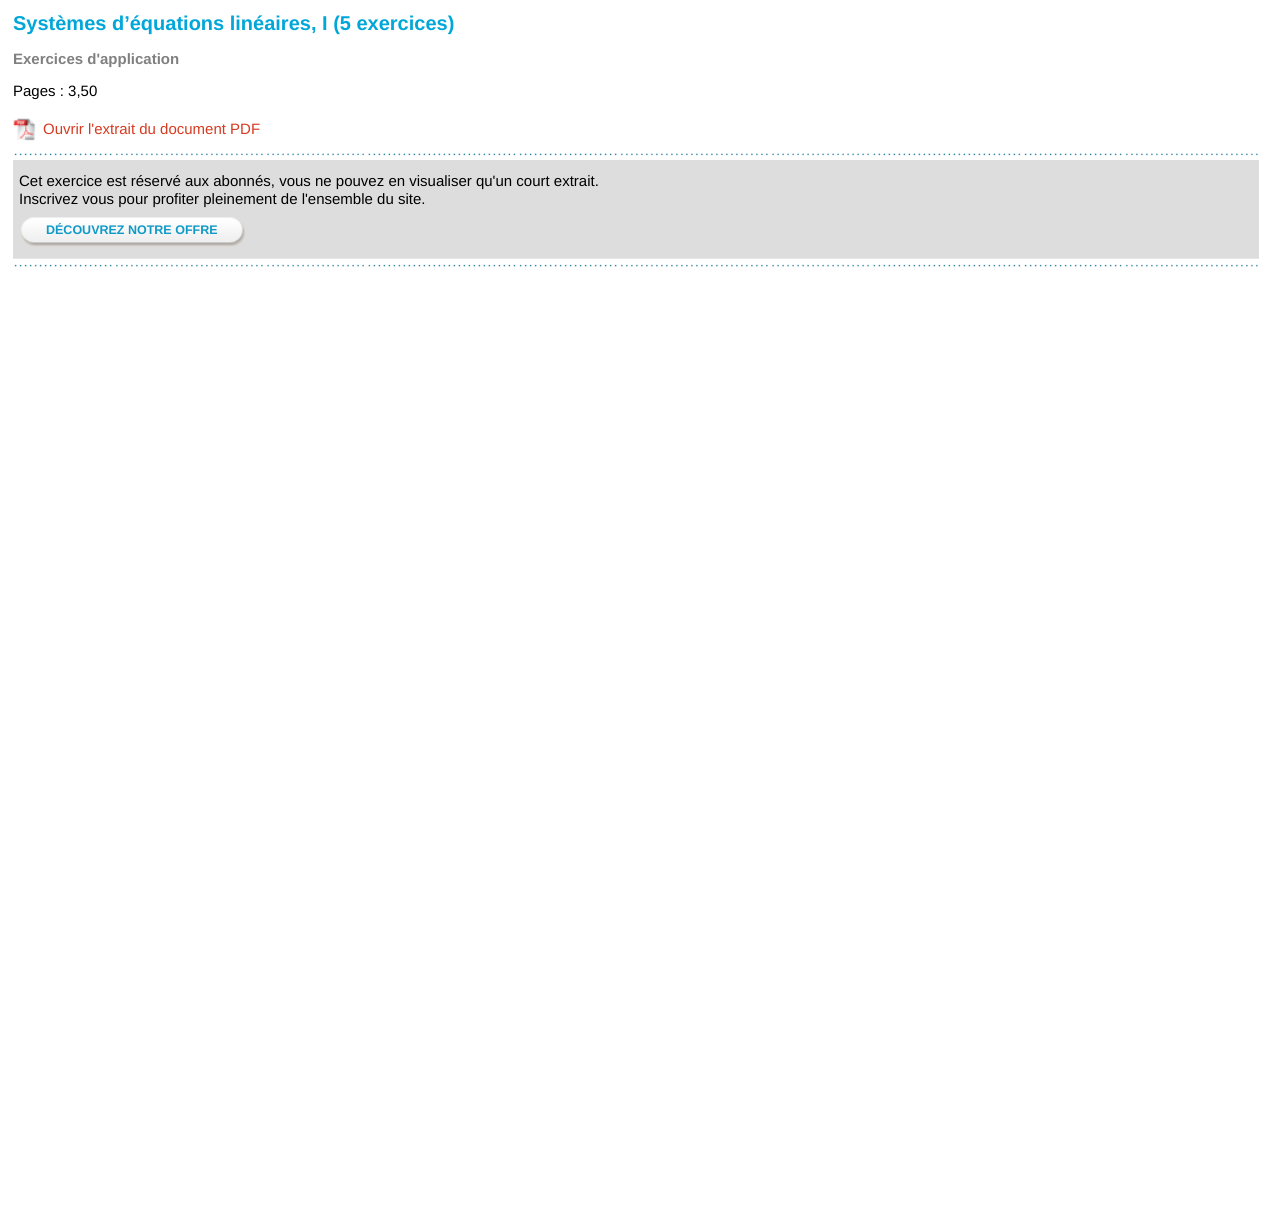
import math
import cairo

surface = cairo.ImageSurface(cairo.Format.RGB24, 1271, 1221)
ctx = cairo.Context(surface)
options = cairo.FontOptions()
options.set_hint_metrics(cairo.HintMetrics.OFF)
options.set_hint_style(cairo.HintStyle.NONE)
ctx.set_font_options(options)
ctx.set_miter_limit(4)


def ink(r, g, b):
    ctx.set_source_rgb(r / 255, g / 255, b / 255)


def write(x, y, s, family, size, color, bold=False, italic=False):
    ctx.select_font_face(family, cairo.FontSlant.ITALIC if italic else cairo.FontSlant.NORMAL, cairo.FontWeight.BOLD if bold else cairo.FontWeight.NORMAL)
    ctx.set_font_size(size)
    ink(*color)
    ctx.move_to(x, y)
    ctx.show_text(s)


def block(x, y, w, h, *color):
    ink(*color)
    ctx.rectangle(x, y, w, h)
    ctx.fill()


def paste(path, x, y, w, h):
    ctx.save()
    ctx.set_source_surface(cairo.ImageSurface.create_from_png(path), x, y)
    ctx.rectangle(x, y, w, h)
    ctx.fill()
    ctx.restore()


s1 = dict(family="Liberation Sans", size=20, color=(0, 167, 216), bold=True)
s2 = dict(family="Liberation Sans", size=15, color=(128, 128, 128), bold=True)
s3 = dict(family="Liberation Sans", size=15, color=(0, 0, 0))
s4 = dict(family="Liberation Sans", size=15, color=(214, 58, 32))
s5 = dict(family="Liberation Sans", size=12.5, color=(15, 154, 200), bold=True)

ink(255, 255, 255)
ctx.paint()
write(13, 30, "Systèmes d’équations linéaires, I (5 exercices)", **s1)
write(13, 64, "Exercices d'application", **s2)
write(13, 96, "Pages : 3,50", **s3)
paste("pic1.png", 13, 118, 23, 23)
write(43, 134, "Ouvrir l'extrait du document PDF", **s4)
paste("pic2.png", 14, 153, 1244, 3)
block(13, 160, 1246, 99, 221, 221, 221)
write(19, 186, "Cet exercice est réservé aux abonnés, vous ne pouvez en visualiser qu'un court extrait.", **s3)
write(19, 204, "Inscrivez vous pour profiter pleinement de l'ensemble du site.", **s3)
paste("pic3.png", 21, 217, 224, 30)
write(46, 234, "DÉCOUVREZ NOTRE OFFRE", **s5)
paste("pic4.png", 13, 258, 1246, 9)
surface.write_to_png("screenshot.png")
